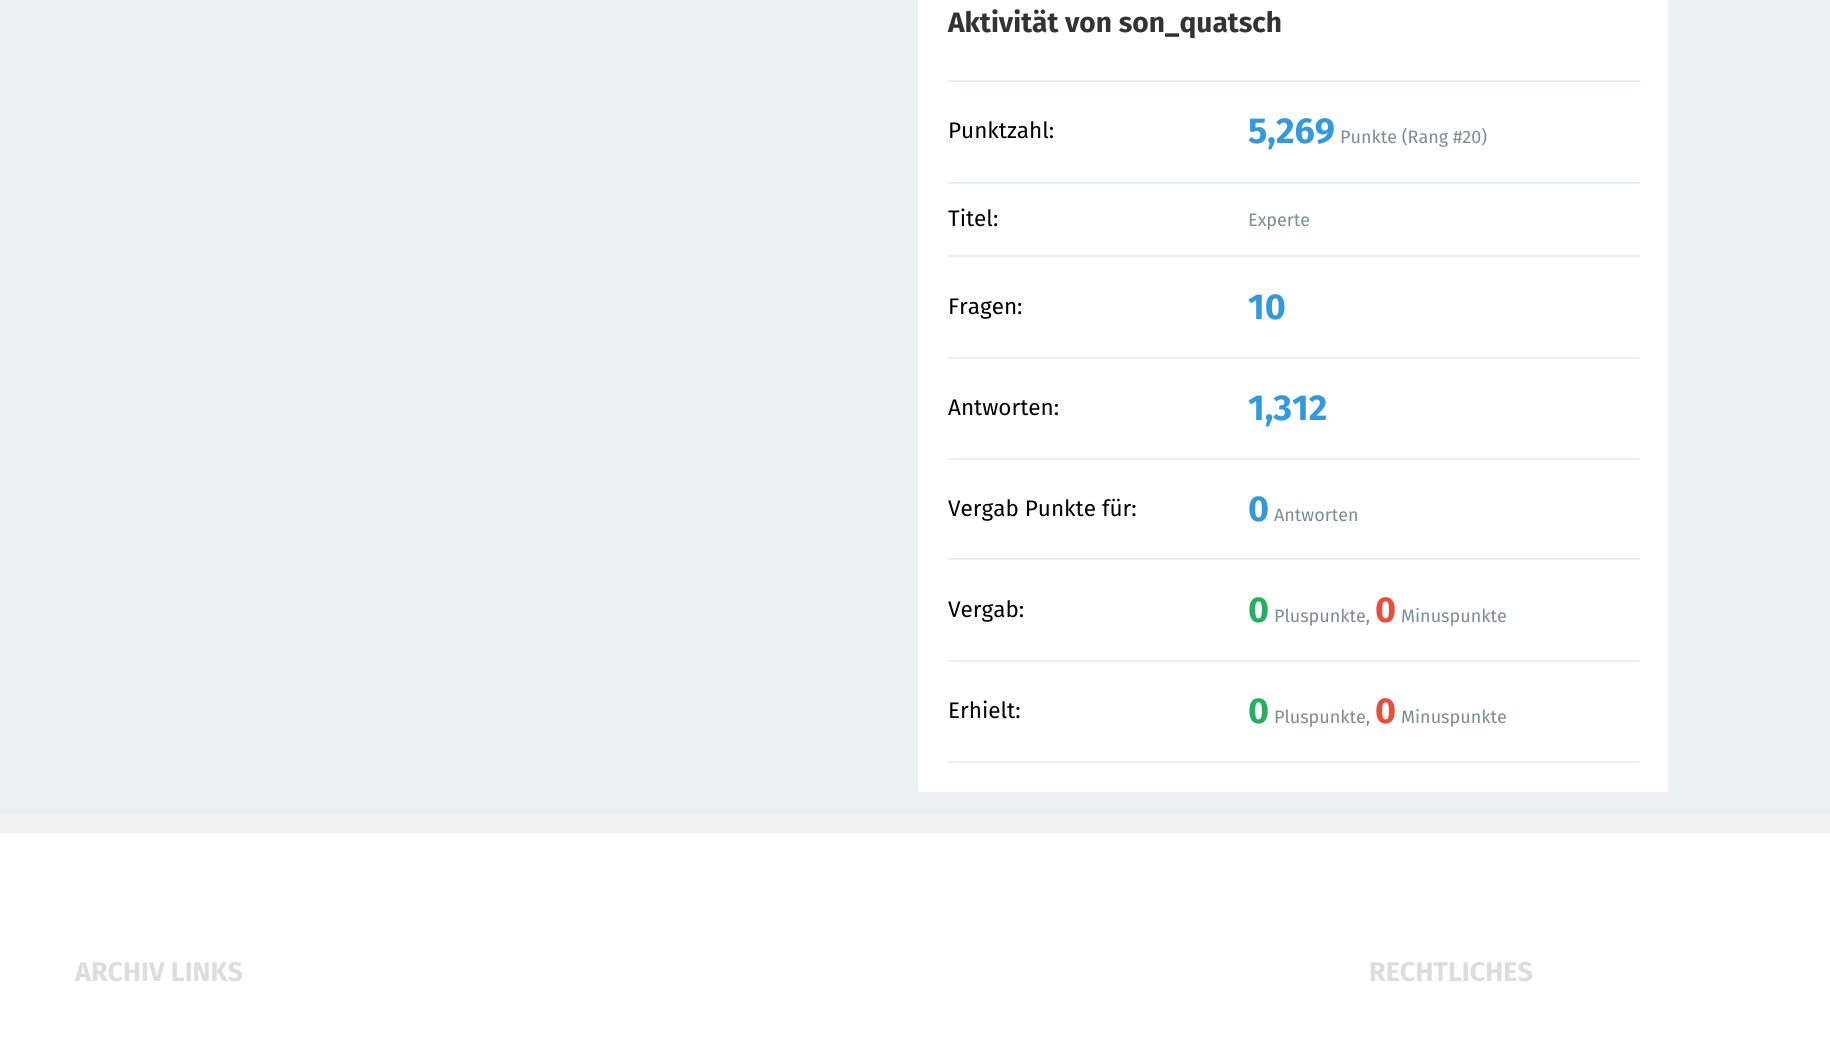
import math
import cairo

surface = cairo.ImageSurface(cairo.Format.RGB24, 1830, 1052)
ctx = cairo.Context(surface)
options = cairo.FontOptions()
options.set_hint_metrics(cairo.HintMetrics.OFF)
options.set_hint_style(cairo.HintStyle.NONE)
ctx.set_font_options(options)
ctx.set_miter_limit(4)


def ink(r, g, b):
    ctx.set_source_rgb(r / 255, g / 255, b / 255)


def write(x, y, s, family, size, color, bold=False, italic=False):
    ctx.select_font_face(family, cairo.FontSlant.ITALIC if italic else cairo.FontSlant.NORMAL, cairo.FontWeight.BOLD if bold else cairo.FontWeight.NORMAL)
    ctx.set_font_size(size)
    ink(*color)
    ctx.move_to(x, y)
    ctx.show_text(s)


def block(x, y, w, h, *color):
    ink(*color)
    ctx.rectangle(x, y, w, h)
    ctx.fill()


s1 = dict(family="Fira Sans", size=28.1, color=(51, 51, 51), bold=True)
s2 = dict(family="Fira Sans", size=22.5, color=(0, 0, 0))
s3 = dict(family="Fira Sans", size=36, color=(52, 152, 219), bold=True)
s4 = dict(family="Fira Sans", size=18, color=(127, 140, 141))
s5 = dict(family="Fira Sans", size=36, color=(39, 174, 96), bold=True)
s6 = dict(family="Fira Sans", size=36, color=(231, 76, 60), bold=True)
s7 = dict(family="Fira Sans", size=27, color=(221, 221, 221), bold=True)

ink(236, 240, 241)
ctx.paint()
block(918, 0, 750, 792, 255, 255, 255)
write(948, 32, "Aktivität von son_quatsch", **s1)
write(948, 138, "Punktzahl:", **s2)
block(948, 80, 692, 2, 236, 240, 241)
write(1248, 143, "5,269", **s3)
write(1340, 143, "Punkte (Rang #20)", **s4)
write(948, 226, "Titel:", **s2)
block(948, 182, 692, 2, 236, 240, 241)
write(1248, 226, "Experte", **s4)
write(948, 314, "Fragen:", **s2)
block(948, 255, 692, 2, 236, 240, 241)
write(1248, 319, "10", **s3)
write(948, 415, "Antworten:", **s2)
block(948, 357, 692, 2, 236, 240, 241)
write(1248, 420, "1,312", **s3)
write(948, 516, "Vergab Punkte für:", **s2)
block(948, 458, 692, 2, 236, 240, 241)
write(1248, 521, "0", **s3)
write(1274, 521, "Antworten", **s4)
write(948, 617, "Vergab:", **s2)
block(948, 558, 692, 2, 236, 240, 241)
write(1248, 622, "0", **s5)
write(1274, 622, "Pluspunkte,", **s4)
write(1375, 622, "0", **s6)
write(1401, 622, "Minuspunkte", **s4)
write(948, 718, "Erhielt:", **s2)
block(948, 660, 692, 2, 236, 240, 241)
block(948, 761, 692, 2, 236, 240, 241)
write(1248, 723, "0", **s5)
write(1274, 723, "Pluspunkte,", **s4)
write(1375, 723, "0", **s6)
write(1401, 723, "Minuspunkte", **s4)
block(0, 833, 1830, 219, 255, 255, 255)
block(0, 815, 1830, 18, 242, 242, 242)
write(75, 981, "ARCHIV LINKS", **s7)
write(1369, 981, "RECHTLICHES", **s7)
surface.write_to_png("screenshot.png")
